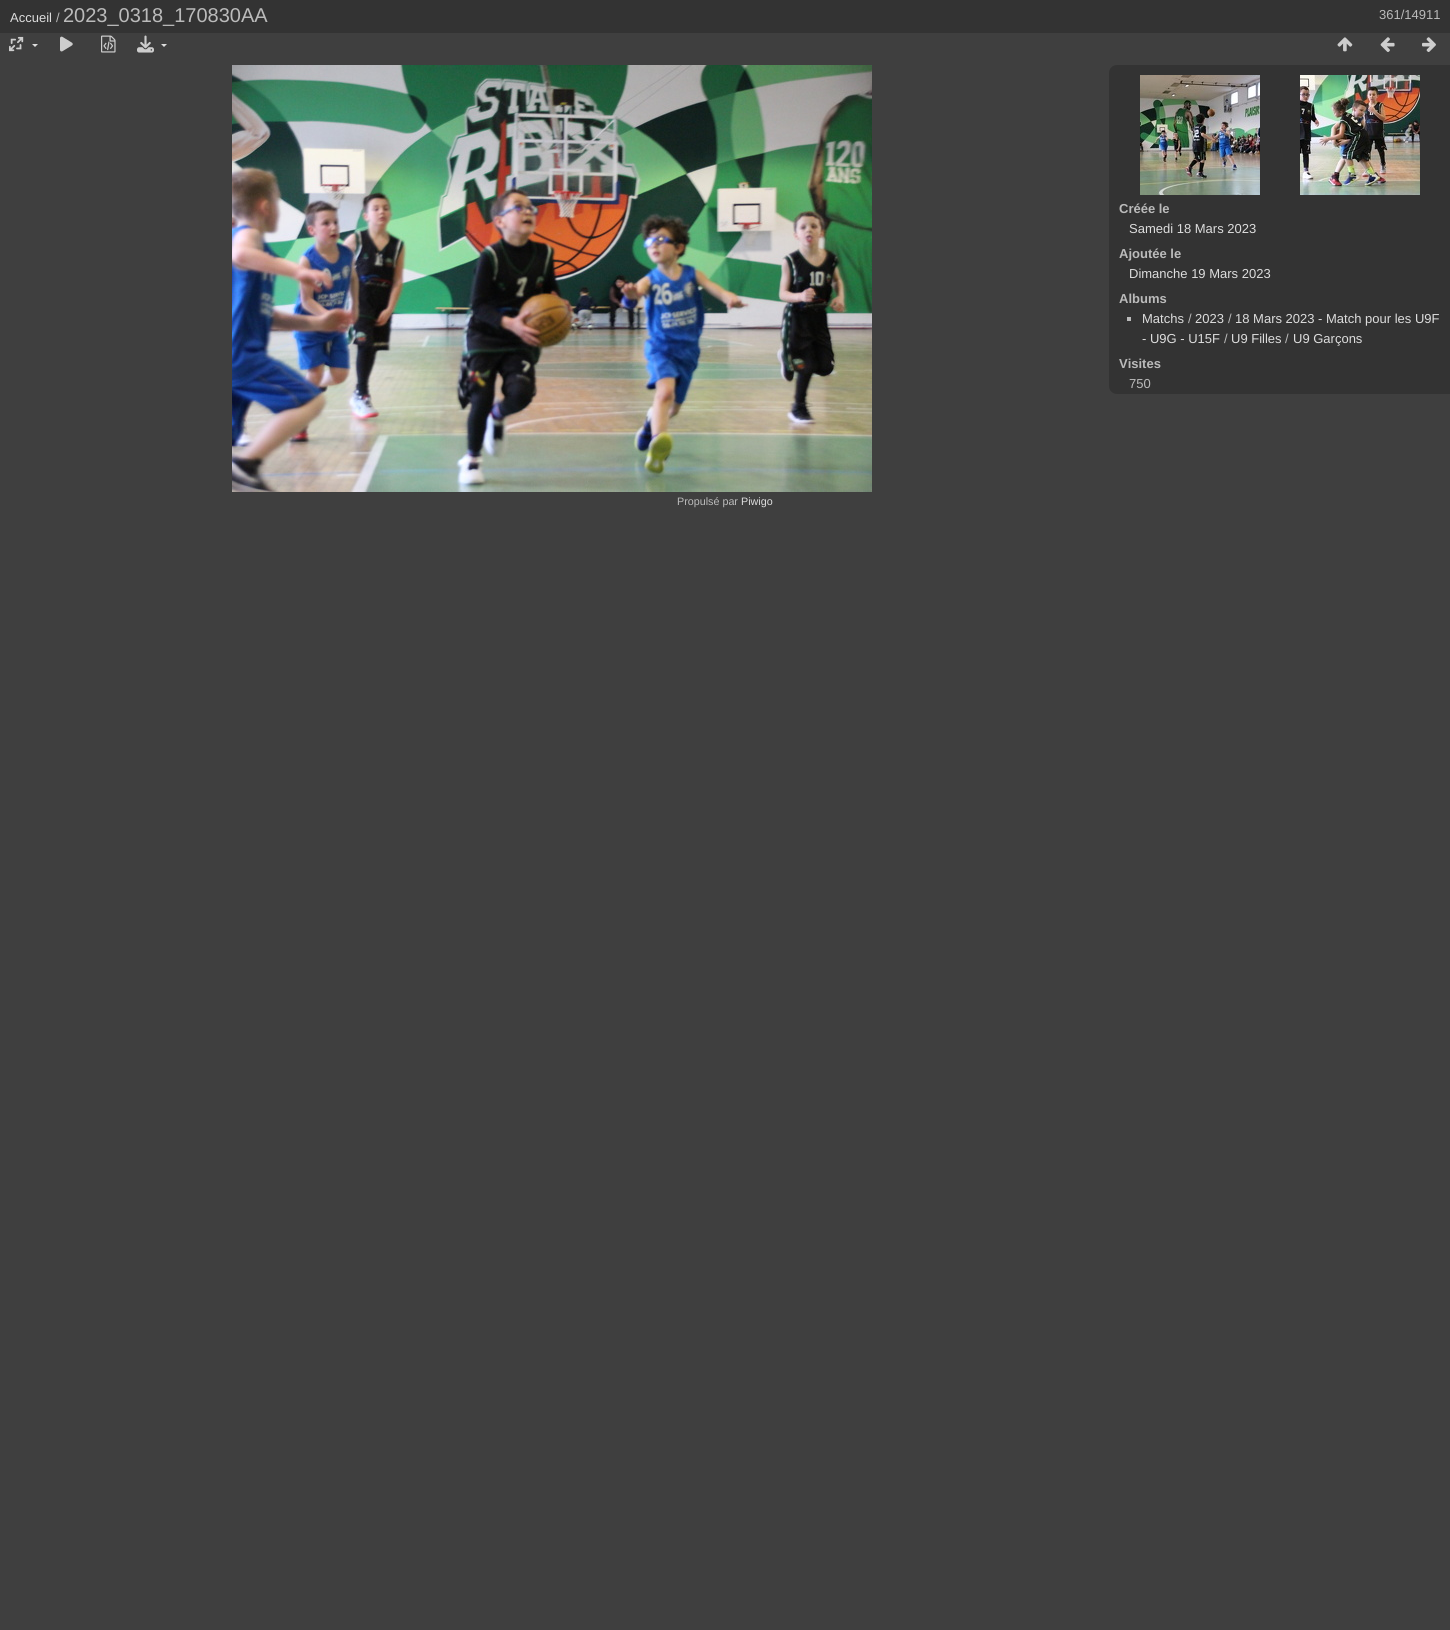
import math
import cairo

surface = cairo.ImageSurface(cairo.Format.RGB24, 1450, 1630)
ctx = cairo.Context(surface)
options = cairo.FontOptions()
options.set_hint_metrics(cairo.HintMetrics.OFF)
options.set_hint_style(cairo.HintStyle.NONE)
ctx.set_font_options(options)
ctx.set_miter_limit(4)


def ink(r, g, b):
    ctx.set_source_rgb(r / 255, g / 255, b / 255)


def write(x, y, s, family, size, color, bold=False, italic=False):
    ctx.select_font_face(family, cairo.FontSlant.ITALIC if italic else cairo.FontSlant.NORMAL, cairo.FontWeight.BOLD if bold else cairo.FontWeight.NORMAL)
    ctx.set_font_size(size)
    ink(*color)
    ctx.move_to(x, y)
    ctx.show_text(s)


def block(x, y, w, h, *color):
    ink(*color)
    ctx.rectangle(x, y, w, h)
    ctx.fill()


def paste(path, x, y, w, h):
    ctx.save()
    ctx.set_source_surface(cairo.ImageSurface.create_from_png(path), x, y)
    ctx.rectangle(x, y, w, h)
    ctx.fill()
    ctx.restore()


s1 = dict(family="Liberation Sans", size=13, color=(221, 221, 221))
s2 = dict(family="Liberation Sans", size=13, color=(187, 187, 187))
s3 = dict(family="Liberation Sans", size=20, color=(187, 187, 187))
s4 = dict(family="Liberation Sans", size=13, color=(187, 187, 187), bold=True)
s5 = dict(family="Liberation Sans", size=10.75, color=(187, 187, 187))
s6 = dict(family="Liberation Sans", size=10.75, color=(221, 221, 221))

ink(63, 63, 63)
ctx.paint()
block(0, 0, 1450, 33, 51, 51, 51)
write(10, 22, "Accueil", **s1)
write(56, 22, "/", **s2)
write(63, 22, "2023_0318_170830AA", **s3)
write(1379, 19, "361/14911", **s2)
paste("pic1.png", 9, 36, 15, 16)
ink(221, 221, 221)
ctx.new_path()
ctx.move_to(32, 44)
ctx.line_to(38, 44)
ctx.line_to(35, 47)
ctx.close_path()
ctx.fill()
paste("pic2.png", 60, 36, 13, 16)
paste("pic3.png", 101, 35, 15, 18)
paste("pic4.png", 137, 35, 17, 18)
ctx.new_path()
ctx.move_to(161, 44)
ctx.line_to(167, 44)
ctx.line_to(164, 47)
ctx.close_path()
ctx.fill()
paste("pic5.png", 1337, 37, 16, 15)
paste("pic6.png", 1380, 37, 15, 15)
paste("pic7.png", 1422, 37, 14, 15)
paste("pic8.png", 232, 65, 640, 427)
ink(51, 51, 51)
ctx.new_path()
ctx.move_to(1117, 65)
ctx.line_to(1450, 65)
ctx.line_to(1450, 394)
ctx.line_to(1117, 394)
ctx.curve_to(1112.5, 394, 1109, 390.5, 1109, 386)
ctx.line_to(1109, 73)
ctx.curve_to(1109, 68.5, 1112.5, 65, 1117, 65)
ctx.close_path()
ctx.fill()
paste("pic9.png", 1140, 75, 120, 120)
paste("pic10.png", 1300, 75, 120, 120)
write(1119, 213, "Créée le", **s4)
write(1129, 233, "Samedi 18 Mars 2023", **s1)
write(1119, 258, "Ajoutée le", **s4)
write(1129, 278, "Dimanche 19 Mars 2023", **s1)
write(1119, 303, "Albums", **s4)
block(1127, 317, 4, 4, 187, 187, 187)
write(1142, 323, "Matchs", **s1)
write(1188, 323, "/", **s2)
write(1195, 323, "2023", **s1)
write(1228, 323, "/", **s2)
write(1235, 323, "18 Mars 2023 - Match pour les U9F", **s1)
write(1142, 343, "- U9G - U15F", **s1)
write(1224, 343, "/", **s2)
write(1231, 343, "U9 Filles", **s1)
write(1285, 343, "/", **s2)
write(1293, 343, "U9 Garçons", **s1)
write(1119, 368, "Visites", **s4)
write(1129, 388, "750", **s2)
write(677, 505, "Propulsé par", **s5)
write(741, 505, "Piwigo", **s6)
surface.write_to_png("screenshot.png")
